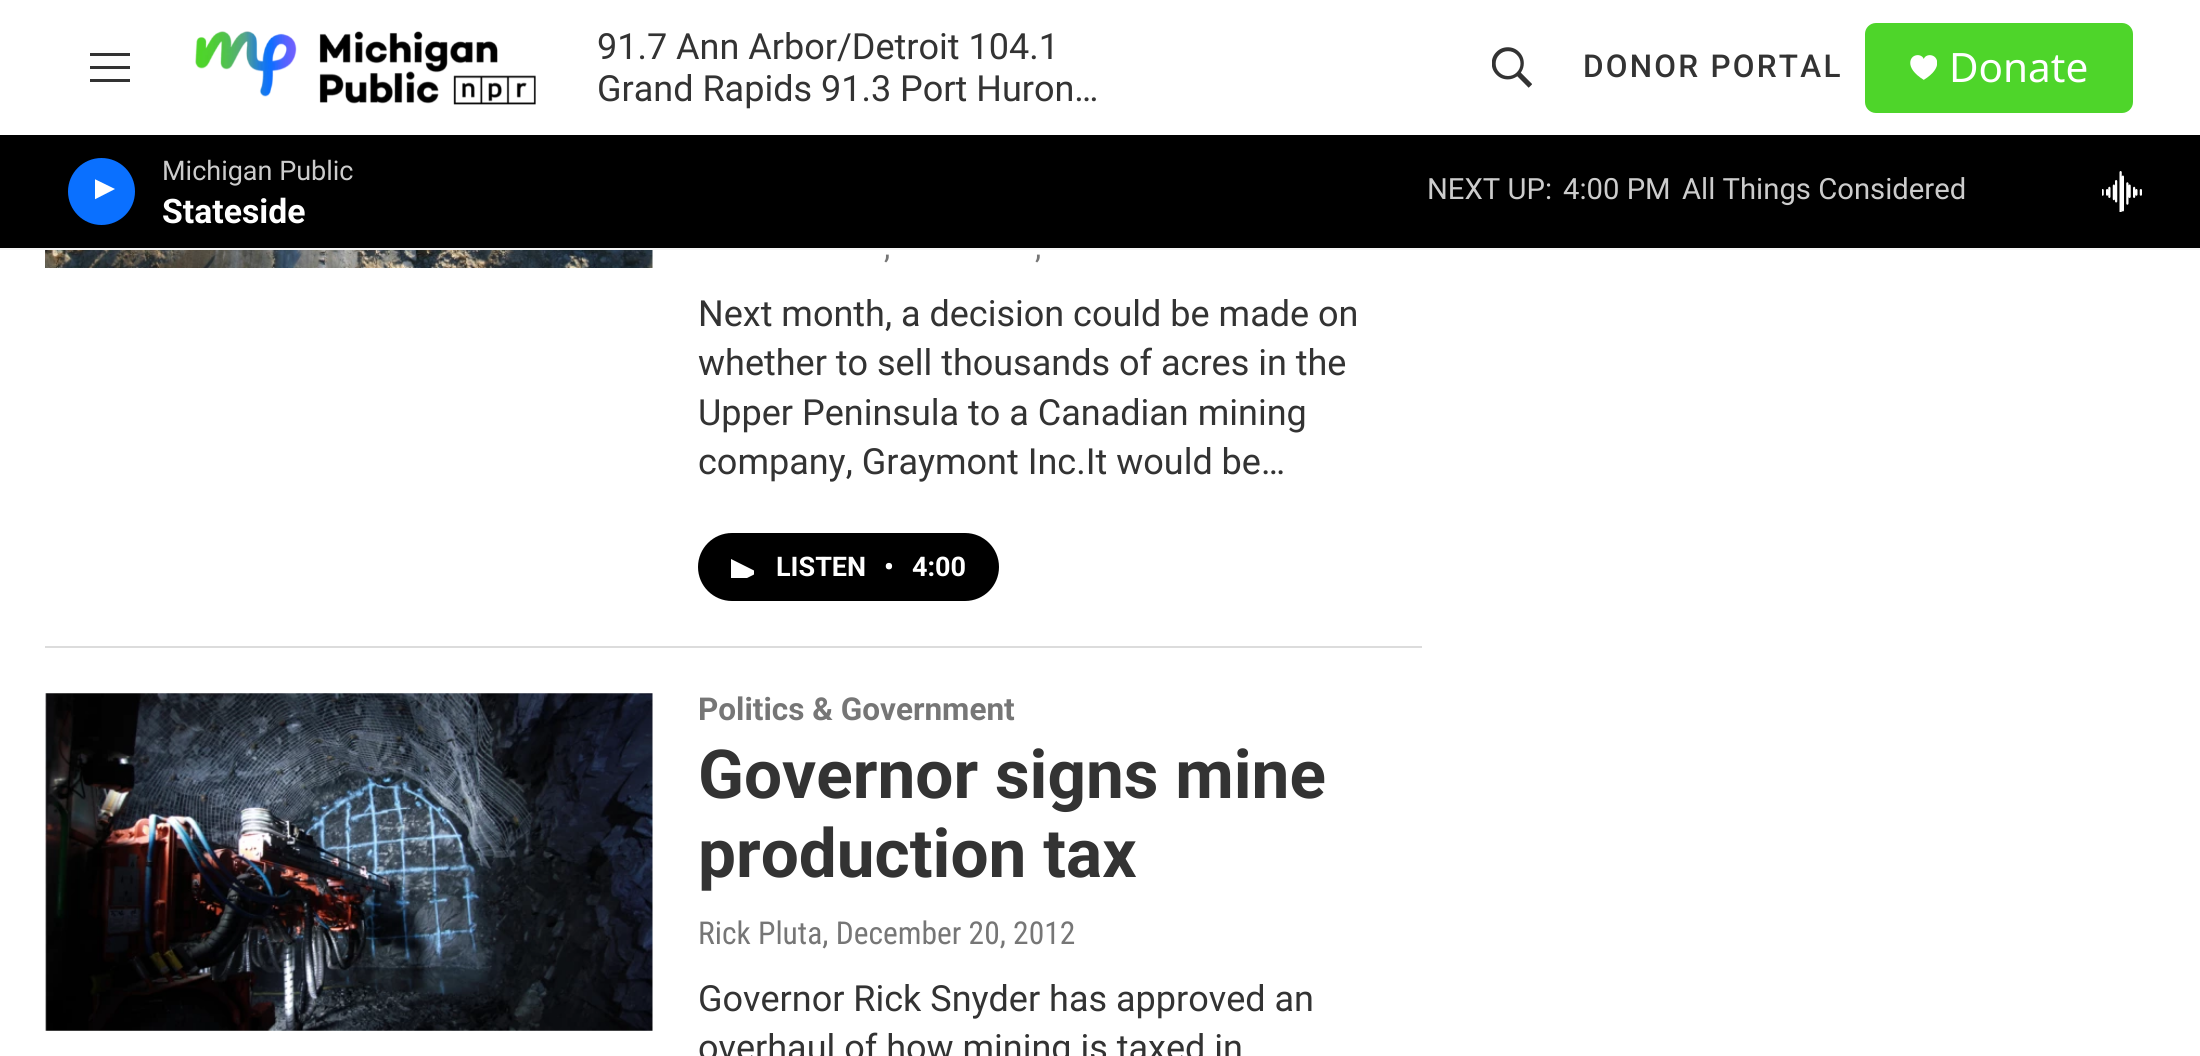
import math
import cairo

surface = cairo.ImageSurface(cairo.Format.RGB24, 2200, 1056)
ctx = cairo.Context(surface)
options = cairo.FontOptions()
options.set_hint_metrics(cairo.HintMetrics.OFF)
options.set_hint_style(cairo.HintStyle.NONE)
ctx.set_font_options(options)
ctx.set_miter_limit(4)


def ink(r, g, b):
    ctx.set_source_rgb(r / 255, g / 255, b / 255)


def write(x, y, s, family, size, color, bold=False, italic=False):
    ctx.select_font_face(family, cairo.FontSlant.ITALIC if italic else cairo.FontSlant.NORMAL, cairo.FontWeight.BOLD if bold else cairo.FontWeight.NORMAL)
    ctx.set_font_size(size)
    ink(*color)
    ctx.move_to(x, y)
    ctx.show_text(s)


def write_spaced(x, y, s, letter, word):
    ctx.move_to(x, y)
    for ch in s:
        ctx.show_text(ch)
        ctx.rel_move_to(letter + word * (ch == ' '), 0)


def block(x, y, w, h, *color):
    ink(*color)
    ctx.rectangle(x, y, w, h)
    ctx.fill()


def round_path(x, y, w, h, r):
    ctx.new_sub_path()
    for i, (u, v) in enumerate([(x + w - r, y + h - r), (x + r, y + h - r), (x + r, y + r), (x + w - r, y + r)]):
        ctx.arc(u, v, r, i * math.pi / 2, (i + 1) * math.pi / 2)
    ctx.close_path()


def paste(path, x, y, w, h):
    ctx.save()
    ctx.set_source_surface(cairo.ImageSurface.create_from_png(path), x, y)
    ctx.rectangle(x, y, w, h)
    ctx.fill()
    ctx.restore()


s1 = dict(family="Roboto", size=36, color=(51, 51, 51))
s2 = dict(family="Noto Sans", size=40.5, color=(255, 255, 255))
s3 = dict(family="Roboto", size=27, color=(204, 204, 204))
s4 = dict(family="Roboto", size=33.75, color=(255, 255, 255), bold=True)
s5 = dict(family="Roboto", size=29.25, color=(204, 204, 204))
s6 = dict(family="Roboto Condensed", size=31.5, color=(118, 118, 118))
s7 = dict(family="Roboto", size=27, color=(255, 255, 255), bold=True)
s8 = dict(family="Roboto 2", size=31.5, color=(118, 118, 118), bold=True)
s9 = dict(family="Roboto 2", size=67.5, color=(51, 51, 51), bold=True)

ink(255, 255, 255)
ctx.paint()
block(0, 248, 2200, 2, 245, 245, 245)
ink(51, 51, 51)
ctx.set_fill_rule(cairo.FillRule.EVEN_ODD)
ctx.new_path()
ctx.move_to(90, 69)
ctx.line_to(90, 66)
ctx.line_to(130, 66)
ctx.line_to(130, 69)
ctx.close_path()
ctx.move_to(90, 56)
ctx.line_to(90, 53)
ctx.line_to(130, 53)
ctx.line_to(130, 56)
ctx.close_path()
ctx.move_to(90, 82)
ctx.line_to(90, 79)
ctx.line_to(130, 79)
ctx.line_to(130, 82)
ctx.close_path()
ctx.fill()
paste("pic1.png", 195, 31, 341, 74)
write(597, 59, "91.7 Ann Arbor/Detroit 104.1", **s1)
write(597, 101, "Grand Rapids 91.3 Port Huron…", **s1)
paste("pic2.png", 1492, 47, 40, 41)
ctx.select_font_face("Roboto Medium")
ctx.set_font_size(31.5)
write_spaced(1583, 77, "DONOR PORTAL", 2.25, 0)
ink(78, 213, 42)
round_path(1865, 23, 268, 90, 11)
ctx.fill()
paste("pic3.png", 1910, 55, 27, 25)
write(1949, 82, "Donate", **s2)
block(0, 135, 2200, 113, 0, 0, 0)
ink(10, 112, 255)
ctx.new_path()
ctx.arc(101.5, 191.5, 33.5, 0, 2 * math.pi)
ctx.fill()
ctx.save()
ctx.set_fill_rule(cairo.FillRule.WINDING)
ctx.rectangle(95, 176, 25, 33)
ctx.clip()
ink(255, 255, 255)
ctx.new_path()
ctx.move_to(93.5, 178.5)
ctx.line_to(115, 189)
ctx.line_to(93.5, 200)
ctx.close_path()
ctx.fill()
ctx.restore()
write(162, 180, "Michigan Public", **s3)
write(162, 223, "Stateside", **s4)
write(1427, 199, "NEXT UP:", **s5)
write(1563, 199, "4:00 PM", **s5)
write(1682, 199, "All Things Considered", **s5)
paste("pic4.png", 2102, 171, 40, 41)
block(45, 646, 1377, 2, 220, 220, 220)
paste("pic5.png", 45, 250, 608, 18)
write(884, 258, ",", **s6)
write(1035, 258, ",", **s6)
write(698, 326, "Next month, a decision could be made on", **s1)
write(698, 375, "whether to sell thousands of acres in the", **s1)
write(698, 425, "Upper Peninsula to a Canadian mining", **s1)
write(698, 474, "company, Graymont Inc.It would be…", **s1)
ink(0, 0, 0)
round_path(698, 533, 301, 68, 34)
ctx.fill()
ctx.save()
ctx.set_fill_rule(cairo.FillRule.WINDING)
ctx.rectangle(731, 556, 23, 22)
ctx.clip()
ink(255, 255, 255)
ctx.new_path()
ctx.move_to(731, 559)
ctx.line_to(758, 572.5)
ctx.line_to(731, 586)
ctx.close_path()
ctx.fill()
ctx.restore()
write(776, 576, "LISTEN", **s7)
write(884, 576, "•", **s7)
write(912, 576, "4:00", **s7)
paste("pic6.png", 45, 693, 608, 338)
write(698, 720, "Politics & Government", **s8)
write(698, 798, "Governor signs mine", **s9)
write(698, 877, "production tax", **s9)
write(698, 944, "Rick Pluta, December 20, 2012", **s6)
write(698, 1011, "Governor Rick Snyder has approved an", **s1)
write(698, 1060, "overhaul of how mining is taxed in", **s1)
surface.write_to_png("screenshot.png")
